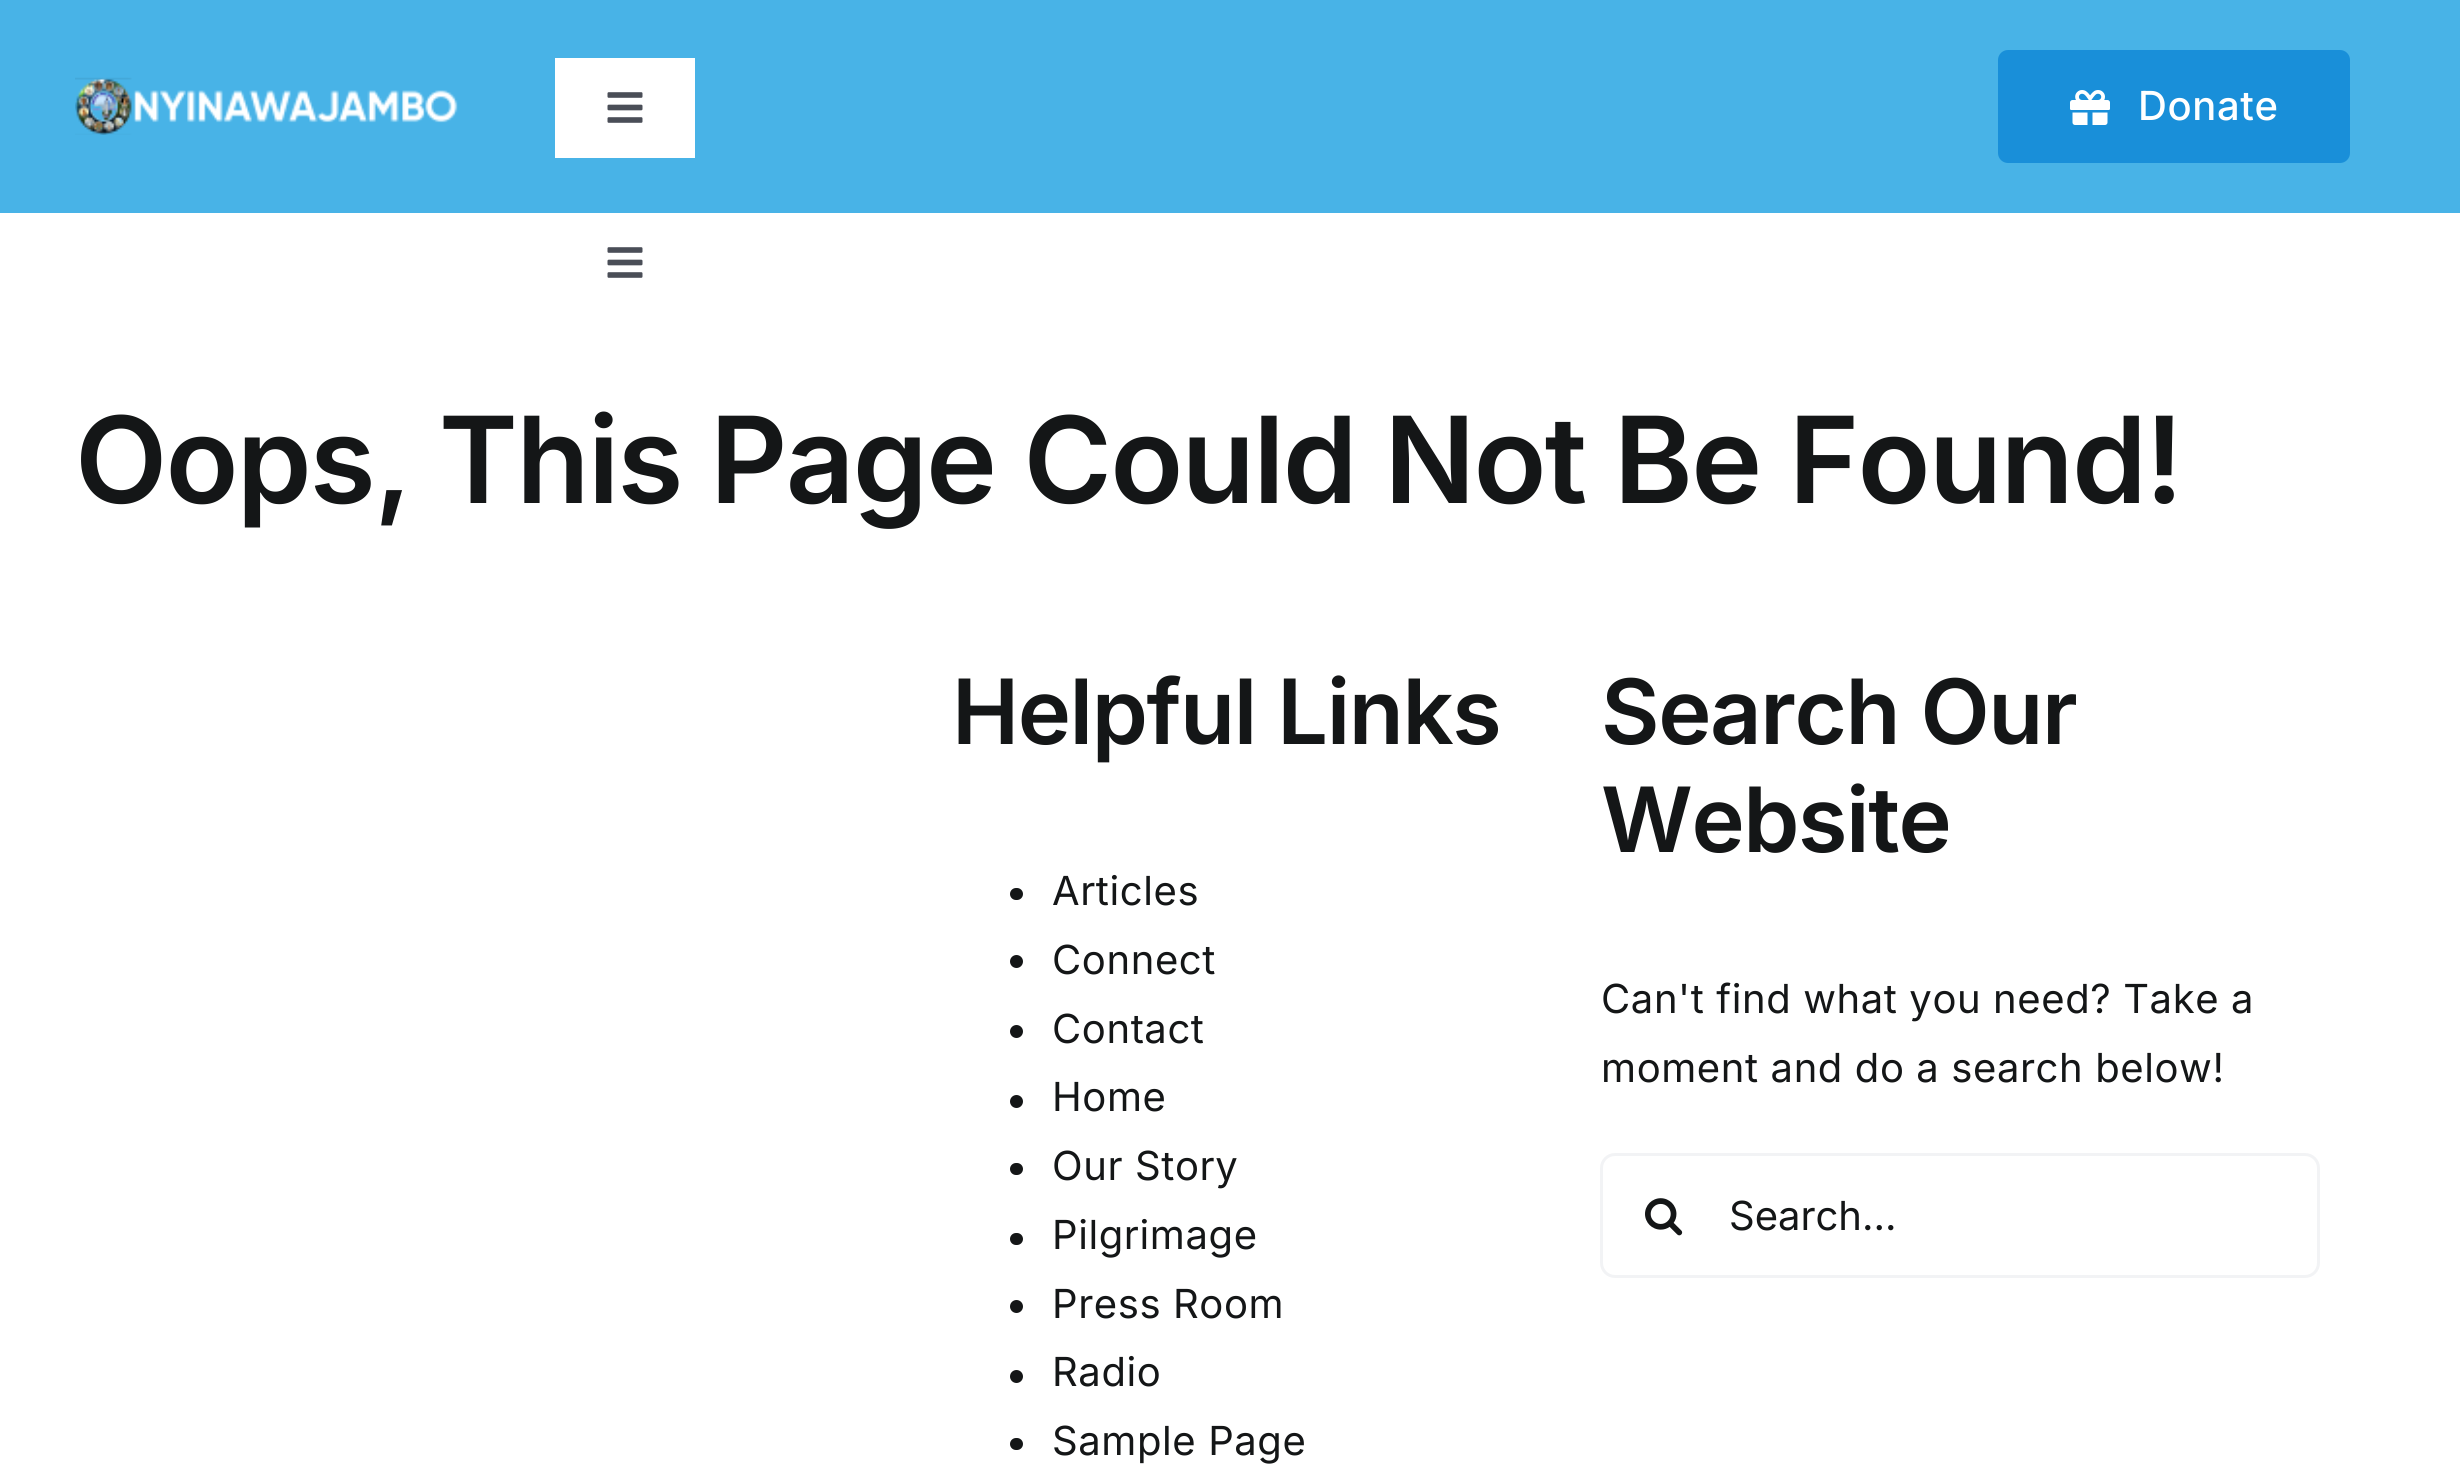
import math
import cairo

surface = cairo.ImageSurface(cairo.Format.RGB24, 2460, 1476)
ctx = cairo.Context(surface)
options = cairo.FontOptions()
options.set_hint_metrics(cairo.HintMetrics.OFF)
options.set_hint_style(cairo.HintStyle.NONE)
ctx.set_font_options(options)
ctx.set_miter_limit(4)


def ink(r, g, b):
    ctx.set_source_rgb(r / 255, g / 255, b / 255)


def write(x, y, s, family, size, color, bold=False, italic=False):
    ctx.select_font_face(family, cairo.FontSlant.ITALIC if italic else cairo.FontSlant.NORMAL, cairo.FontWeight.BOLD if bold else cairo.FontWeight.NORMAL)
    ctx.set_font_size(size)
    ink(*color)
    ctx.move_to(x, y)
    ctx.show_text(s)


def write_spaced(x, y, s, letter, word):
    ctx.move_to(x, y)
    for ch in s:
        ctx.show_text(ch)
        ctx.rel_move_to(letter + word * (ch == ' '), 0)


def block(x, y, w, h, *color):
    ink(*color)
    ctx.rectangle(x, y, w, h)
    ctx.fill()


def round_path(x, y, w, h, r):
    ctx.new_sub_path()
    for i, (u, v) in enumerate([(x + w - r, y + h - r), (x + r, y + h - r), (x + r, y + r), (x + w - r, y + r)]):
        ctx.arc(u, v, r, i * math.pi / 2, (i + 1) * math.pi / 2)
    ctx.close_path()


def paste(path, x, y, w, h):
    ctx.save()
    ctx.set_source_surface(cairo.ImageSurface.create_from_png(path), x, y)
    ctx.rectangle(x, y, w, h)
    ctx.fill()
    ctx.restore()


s1 = dict(family="Inter", size=40, color=(20, 22, 23))

ink(255, 255, 255)
ctx.paint()
block(0, 0, 2460, 213, 72, 179, 231)
paste("pic1.png", 75, 77, 383, 58)
block(555, 58, 140, 100, 255, 255, 255)
paste("pic2.png", 607, 92, 36, 31)
ink(25, 143, 217)
round_path(1998, 50, 352, 113, 10)
ctx.fill()
paste("pic3.png", 2070, 90, 40, 35)
ctx.select_font_face("Inter Medium")
ctx.set_font_size(40)
ink(255, 255, 255)
write_spaced(2138, 120, "Donate", 0.6, 0)
paste("pic2.png", 607, 247, 36, 31)
ctx.select_font_face("Inter SemiBold")
ctx.set_font_size(120)
ink(20, 22, 23)
write_spaced(75, 503, "Oops, This Page Could Not Be Found!", -1.8, 0)
ctx.set_font_size(90)
write_spaced(952, 744, "Helpful Links", -1.4, 0)
round_path(1010, 888, 13, 12, 6)
ctx.fill()
ctx.select_font_face("Inter")
ctx.set_font_size(40)
write_spaced(1052, 905, "Articles", 0.6, 0)
ctx.new_path()
ctx.arc(1016.5, 961.5, 6.5, 0, 2 * math.pi)
ctx.fill()
write_spaced(1052, 974, "Connect", 0.6, 0)
ctx.new_path()
ctx.arc(1016.5, 1031.5, 6.5, 0, 2 * math.pi)
ctx.fill()
write_spaced(1052, 1043, "Contact", 0.6, 0)
ctx.new_path()
ctx.arc(1016.5, 1101.5, 6.5, 0, 2 * math.pi)
ctx.fill()
write_spaced(1052, 1111, "Home", 0.6, 0)
round_path(1010, 1163, 13, 12, 6)
ctx.fill()
write_spaced(1052, 1180, "Our Story", 0.6, 0)
round_path(1010, 1233, 13, 12, 6)
ctx.fill()
write_spaced(1052, 1249, "Pilgrimage", 0.6, 0)
ctx.new_path()
ctx.arc(1016.5, 1306.5, 6.5, 0, 2 * math.pi)
ctx.fill()
write_spaced(1052, 1318, "Press Room", 0.6, 0)
ctx.new_path()
ctx.arc(1016.5, 1376.5, 6.5, 0, 2 * math.pi)
ctx.fill()
write_spaced(1052, 1386, "Radio", 0.6, 0)
round_path(1010, 1438, 13, 12, 6)
ctx.fill()
write_spaced(1052, 1455, "Sample Page", 0.6, 0)
ctx.select_font_face("Inter SemiBold")
ctx.set_font_size(90)
write_spaced(1601, 744, "Search Our", -1.4, 0)
write_spaced(1601, 852, "Website", -1.4, 0)
ctx.select_font_face("Inter")
ctx.set_font_size(40)
write_spaced(1601, 1013, "Can't find what you need? Take a", 0.6, 0)
write_spaced(1601, 1082, "moment and do a search below!", 0.6, 0)
round_path(1601.5, 1154.5, 717, 122, 13.5)
ink(242, 243, 245)
ctx.set_line_width(3)
ctx.stroke()
paste("pic4.png", 1645, 1198, 38, 38)
write(1729, 1230, "Search...", **s1)
surface.write_to_png("screenshot.png")
